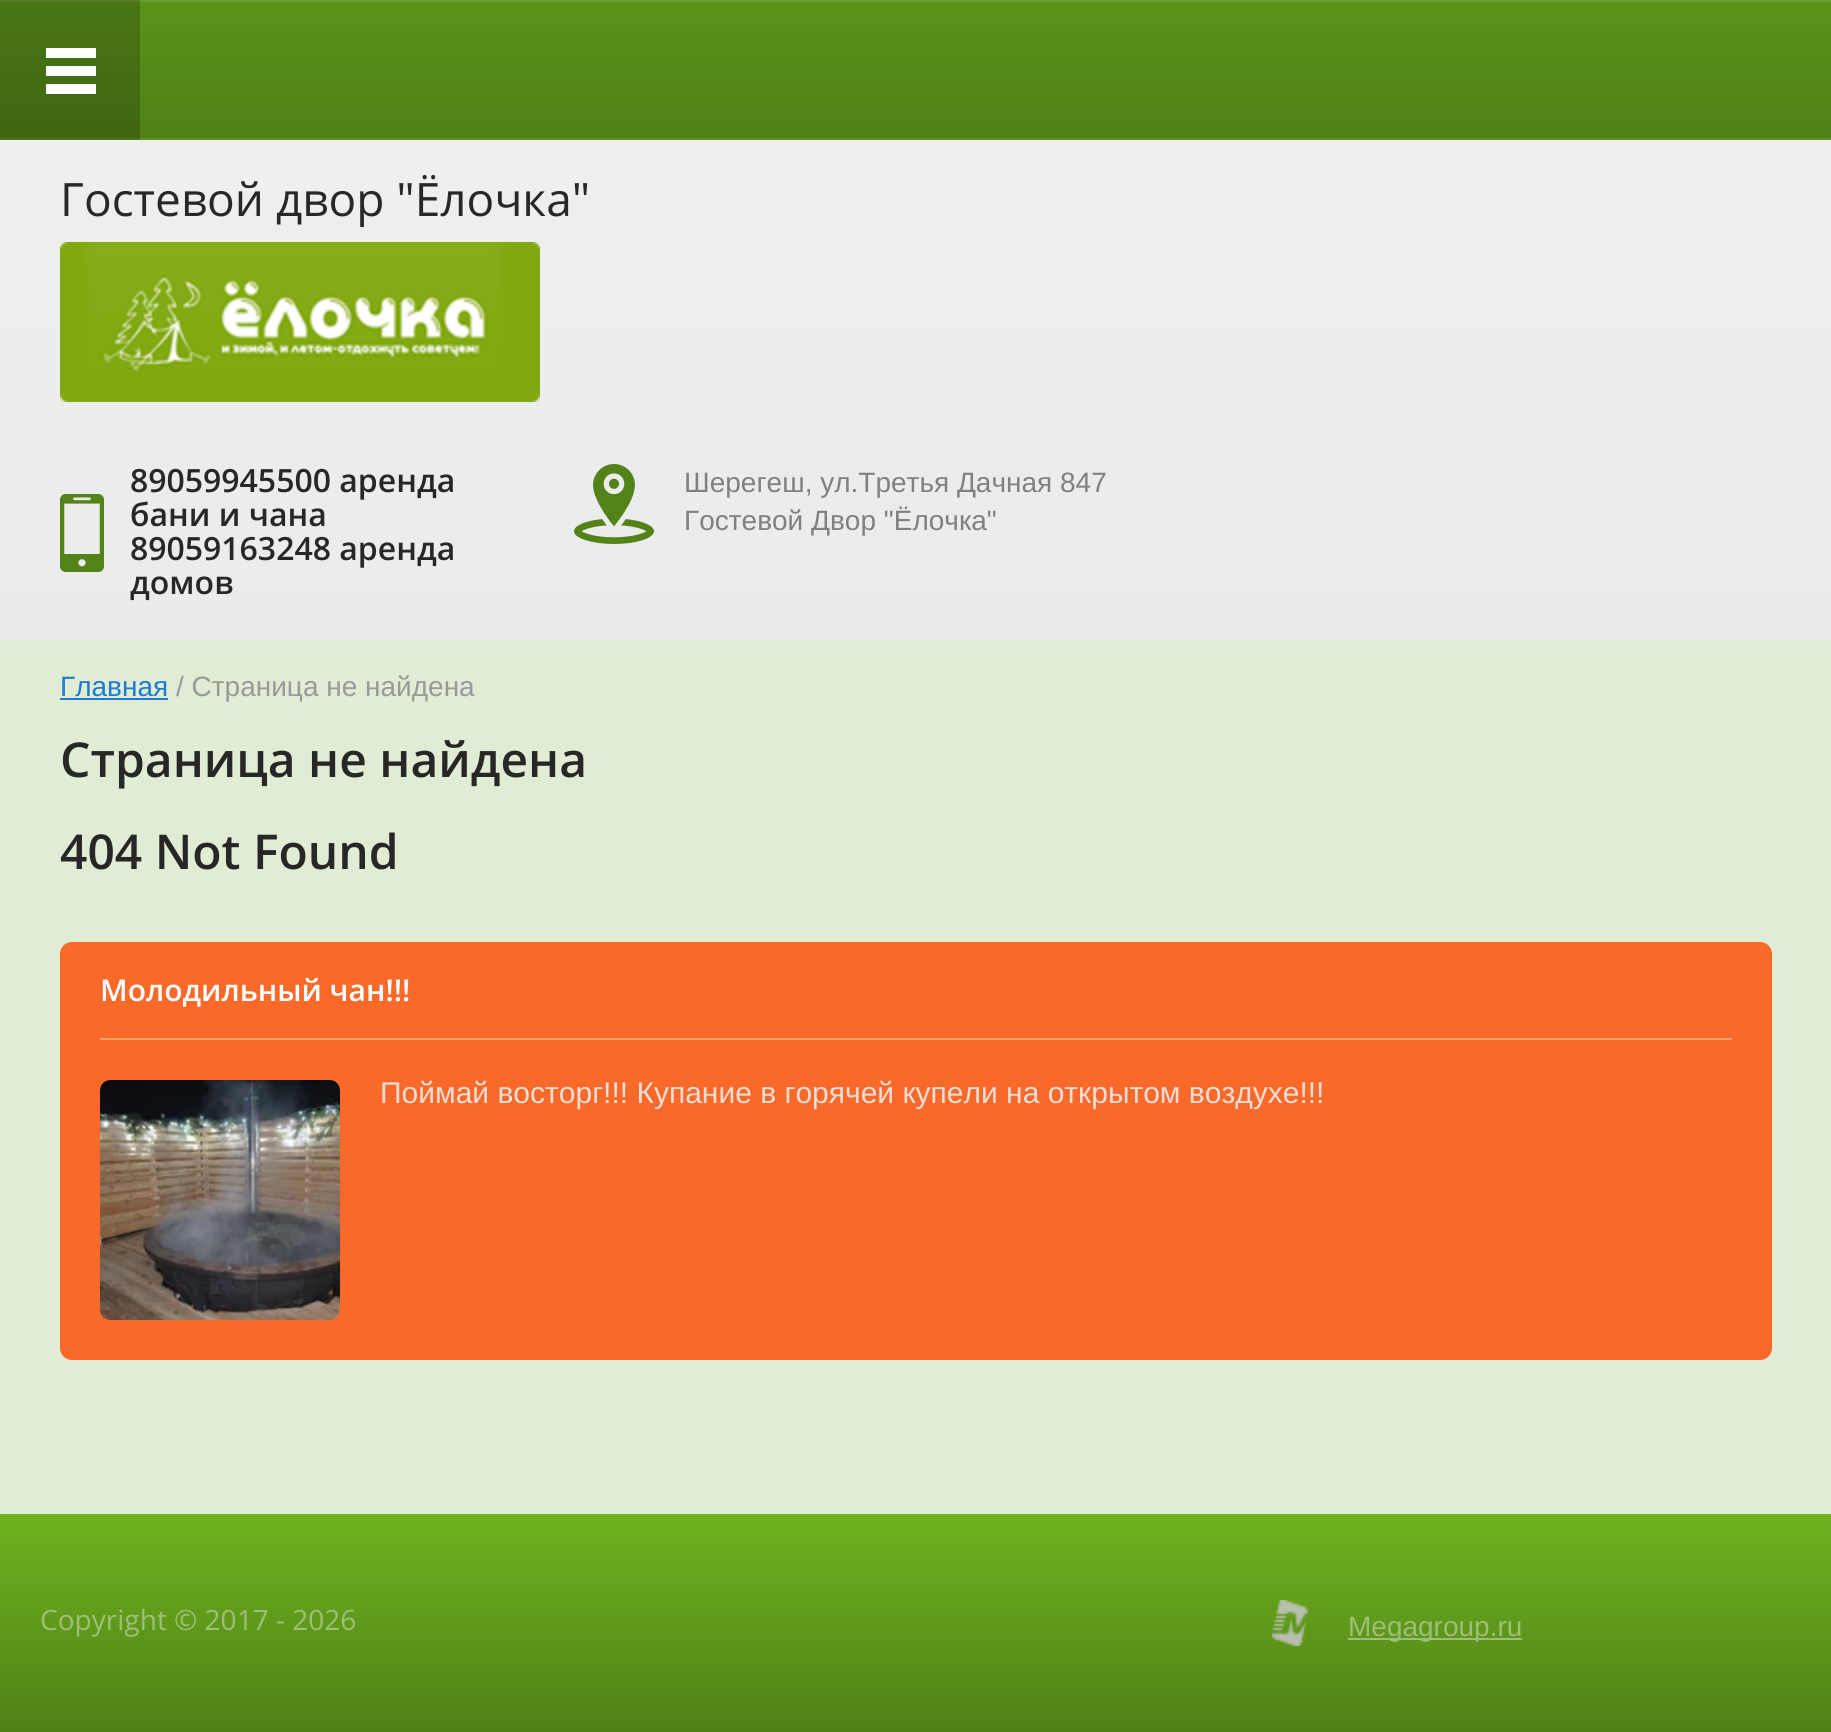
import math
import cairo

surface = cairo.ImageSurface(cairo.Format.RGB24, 1831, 1732)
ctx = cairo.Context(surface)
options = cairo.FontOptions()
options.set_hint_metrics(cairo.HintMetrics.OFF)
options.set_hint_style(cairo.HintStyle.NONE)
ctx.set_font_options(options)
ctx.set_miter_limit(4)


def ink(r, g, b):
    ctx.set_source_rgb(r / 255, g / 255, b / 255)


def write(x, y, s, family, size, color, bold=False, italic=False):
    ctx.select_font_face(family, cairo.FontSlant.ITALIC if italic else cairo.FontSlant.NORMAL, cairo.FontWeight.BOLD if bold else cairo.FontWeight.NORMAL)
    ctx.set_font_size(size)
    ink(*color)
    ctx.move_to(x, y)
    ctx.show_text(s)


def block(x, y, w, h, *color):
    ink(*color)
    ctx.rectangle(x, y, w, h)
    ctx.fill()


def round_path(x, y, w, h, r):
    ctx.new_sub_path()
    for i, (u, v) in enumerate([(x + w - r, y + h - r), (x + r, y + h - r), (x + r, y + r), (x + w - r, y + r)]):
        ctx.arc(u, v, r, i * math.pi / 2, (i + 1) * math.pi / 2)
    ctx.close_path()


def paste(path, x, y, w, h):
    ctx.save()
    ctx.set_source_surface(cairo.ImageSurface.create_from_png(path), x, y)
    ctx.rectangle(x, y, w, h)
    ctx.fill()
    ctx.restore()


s1 = dict(family="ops", size=46, color=(39, 39, 39))
s2 = dict(family="Open Sans SemiBold", size=32, color=(39, 39, 39))
s3 = dict(family="Liberation Sans", size=28, color=(128, 128, 128))
s4 = dict(family="Liberation Sans", size=28, color=(29, 123, 211))
s5 = dict(family="Liberation Sans", size=28, color=(153, 153, 153))
s6 = dict(family="Open Sans SemiBold", size=48, color=(39, 39, 39))
s7 = dict(family="Open Sans SemiBold", size=30, color=(255, 255, 255))
s8 = dict(family="Liberation Sans", size=30, color=(240, 221, 213))
s9 = dict(family="ops", size=28, color=(158, 191, 120))
s10 = dict(family="Liberation Sans", size=28, color=(158, 191, 120))

ink(225, 236, 212)
ctx.paint()
gradient = cairo.LinearGradient(916, 0, 916, 140)
gradient.add_color_stop_rgba(0, 0.357, 0.576, 0.098, 1)
gradient.add_color_stop_rgba(1, 0.31, 0.502, 0.086, 1)
ctx.set_source(gradient)
ctx.rectangle(140, 2, 1691, 136)
ctx.fill()
gradient = cairo.LinearGradient(916, 0, 916, 140)
gradient.add_color_stop_rgba(0, 0.286, 0.463, 0.078, 1)
gradient.add_color_stop_rgba(1, 0.247, 0.4, 0.071, 1)
ctx.set_source(gradient)
ctx.rectangle(0, 2, 140, 136)
ctx.fill()
block(140, 138, 1691, 2, 97, 141, 45)
block(0, 138, 140, 2, 78, 113, 36)
block(140, 0, 1691, 2, 107, 158, 48)
block(0, 0, 140, 2, 86, 126, 38)
ink(255, 255, 255)
ctx.new_path()
ctx.move_to(46, 94)
ctx.line_to(46, 84)
ctx.line_to(96, 84)
ctx.line_to(96, 94)
ctx.close_path()
ctx.move_to(46, 66)
ctx.line_to(96, 66)
ctx.line_to(96, 76)
ctx.line_to(46, 76)
ctx.close_path()
ctx.move_to(46, 48)
ctx.line_to(96, 48)
ctx.line_to(96, 58)
ctx.line_to(46, 58)
ctx.close_path()
ctx.fill()
gradient = cairo.LinearGradient(916, 140, 916, 640)
gradient.add_color_stop_rgba(0, 0.937, 0.937, 0.937, 1)
gradient.add_color_stop_rgba(1, 0.922, 0.922, 0.922, 1)
ctx.set_source(gradient)
ctx.rectangle(0, 140, 1831, 500)
ctx.fill()
write(60, 216, "Гостевой двор \"Ёлочка\"", **s1)
paste("pic1.png", 60, 242, 480, 160)
paste("pic2.png", 60, 494, 44, 78)
write(130, 492, "89059945500 аренда", **s2)
write(130, 526, "бани и чана", **s2)
write(130, 560, "89059163248 аренда", **s2)
write(130, 594, "домов", **s2)
paste("pic3.png", 574, 464, 80, 80)
write(684, 492, "Шерегеш, ул.Третья Дачная 847", **s3)
write(684, 530, "Гостевой Двор \"Ёлочка\"", **s3)
write(60, 696, "Главная", **s4)
block(60, 698, 108, 2, 29, 123, 211)
write(176, 696, "/ Страница не найдена", **s5)
write(60, 777, "Страница не найдена", **s6)
write(60, 869, "404 Not Found", **s6)
ink(249, 105, 42)
round_path(60, 942, 1712, 418, 12)
ctx.fill()
block(100, 1038, 1632, 2, 252, 164, 103)
write(100, 1001, "Молодильный чан!!!", **s7)
paste("pic4.png", 100, 1080, 240, 240)
write(380, 1103, "Поймай восторг!!! Купание в горячей купели на открытом воздухе!!!", **s8)
gradient = cairo.LinearGradient(916, 1514, 916, 1732)
gradient.add_color_stop_rgba(0, 0.435, 0.702, 0.122, 1)
gradient.add_color_stop_rgba(1, 0.31, 0.502, 0.086, 1)
ctx.set_source(gradient)
ctx.rectangle(0, 1514, 1831, 218)
ctx.fill()
write(40, 1630, "Copyright © 2017 - 2026", **s9)
paste("pic5.png", 1272, 1600, 36, 46)
block(1348, 1638, 174, 2, 158, 191, 120)
write(1348, 1636, "Megagroup.ru", **s10)
surface.write_to_png("screenshot.png")
